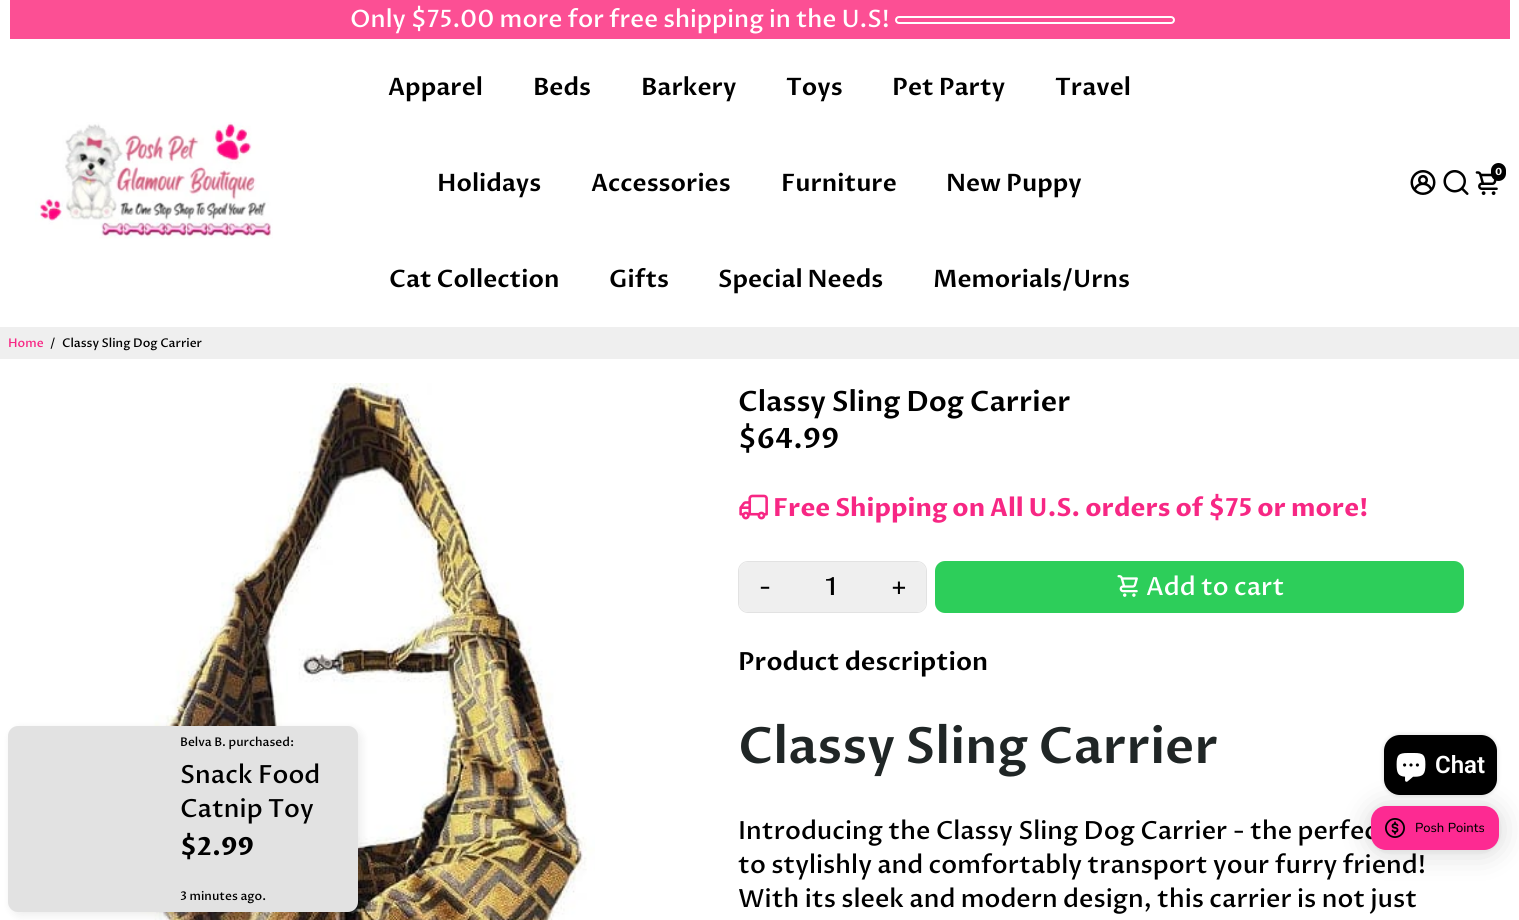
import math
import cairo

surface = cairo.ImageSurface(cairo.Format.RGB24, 1519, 920)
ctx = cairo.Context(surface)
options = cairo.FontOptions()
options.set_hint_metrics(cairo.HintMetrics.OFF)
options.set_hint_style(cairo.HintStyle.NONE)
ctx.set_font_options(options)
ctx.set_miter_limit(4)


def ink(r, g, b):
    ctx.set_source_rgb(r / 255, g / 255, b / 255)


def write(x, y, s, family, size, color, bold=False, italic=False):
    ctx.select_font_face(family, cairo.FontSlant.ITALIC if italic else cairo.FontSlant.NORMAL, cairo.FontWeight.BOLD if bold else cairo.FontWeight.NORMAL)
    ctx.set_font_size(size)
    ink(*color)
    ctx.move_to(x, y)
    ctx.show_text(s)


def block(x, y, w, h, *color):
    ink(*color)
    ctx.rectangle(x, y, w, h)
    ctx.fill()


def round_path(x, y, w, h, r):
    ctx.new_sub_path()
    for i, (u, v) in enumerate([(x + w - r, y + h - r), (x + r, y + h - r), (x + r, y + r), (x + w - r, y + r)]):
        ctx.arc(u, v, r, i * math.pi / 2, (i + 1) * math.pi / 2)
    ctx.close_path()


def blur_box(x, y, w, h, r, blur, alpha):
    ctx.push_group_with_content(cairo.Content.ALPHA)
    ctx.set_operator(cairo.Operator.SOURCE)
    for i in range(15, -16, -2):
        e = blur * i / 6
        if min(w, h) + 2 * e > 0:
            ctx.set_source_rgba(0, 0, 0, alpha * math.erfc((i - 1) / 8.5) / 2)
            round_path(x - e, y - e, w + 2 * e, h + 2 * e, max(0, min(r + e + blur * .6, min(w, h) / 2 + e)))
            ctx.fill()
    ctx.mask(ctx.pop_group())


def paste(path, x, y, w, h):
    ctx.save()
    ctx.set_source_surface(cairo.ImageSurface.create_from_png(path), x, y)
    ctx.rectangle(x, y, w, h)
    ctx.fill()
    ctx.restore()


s1 = dict(family="Proza Libre Medium", size=24, color=(255, 255, 255))
s2 = dict(family="Proza Libre SemiBold", size=24, color=(0, 0, 0))
s3 = dict(family="Proza Libre", size=10, color=(255, 255, 255), bold=True)
s4 = dict(family="Proza Libre Medium", size=12, color=(247, 39, 132))
s5 = dict(family="Proza Libre Medium", size=12, color=(0, 0, 0))
s6 = dict(family="Proza Libre SemiBold", size=28, color=(0, 0, 0))
s7 = dict(family="Proza Libre", size=25, color=(247, 39, 132), bold=True)
s8 = dict(family="Proza Libre Medium", size=25, color=(0, 0, 0))
s9 = dict(family="Proza Libre Medium", size=25, color=(255, 255, 255))
s10 = dict(family="Proza Libre SemiBold", size=25, color=(0, 0, 0))
s11 = dict(family="Proza Libre SemiBold", size=50, color=(32, 38, 38))
s12 = dict(family="Proza Libre", size=25, color=(0, 0, 0), bold=True)
s13 = dict(family="Roboto SemiBold", size=24, color=(255, 255, 255))
s14 = dict(family="Nunito Medium", size=13, color=(0, 0, 0))

ink(255, 255, 255)
ctx.paint()
block(10, 0, 1500, 39, 252, 79, 148)
write(350, 27, "Only $75.00 more for free shipping in the U.S!", **s1)
round_path(896, 17, 278, 6, 3)
ctx.stroke()
paste("pic1.png", 35, 122, 238, 117)
write(388, 95, "Apparel", **s2)
write(533, 95, "Beds", **s2)
write(641, 95, "Barkery", **s2)
write(786, 95, "Toys", **s2)
write(892, 95, "Pet Party", **s2)
write(1055, 95, "Travel", **s2)
write(437, 191, "Holidays", **s2)
write(591, 191, "Accessories", **s2)
write(781, 191, "Furniture", **s2)
write(946, 191, "New Puppy", **s2)
write(389, 287, "Cat Collection", **s2)
write(609, 287, "Gifts", **s2)
write(718, 287, "Special Needs", **s2)
write(933, 287, "Memorials/Urns", **s2)
paste("pic2.png", 1410, 170, 26, 25)
paste("pic3.png", 1443, 170, 26, 25)
paste("pic4.png", 1475, 171, 23, 24)
round_path(1491, 163, 15, 18, 7.5)
ctx.fill()
write(1495, 175, "0", **s3)
block(0, 327, 1519, 32, 239, 239, 239)
write(8, 347, "Home", **s4)
write(50, 347, "/", **s5)
write(62, 347, "Classy Sling Dog Carrier", **s5)
paste("pic5.png", 132, 383, 463, 537)
write(738, 411, "Classy Sling Dog Carrier", **s6)
write(738, 448, "$64.99", **s6)
paste("pic6.png", 739, 494, 29, 26)
write(773, 516, "Free Shipping on All U.S. orders of $75 or more!", **s7)
round_path(738.5, 561.5, 188, 51, 9.5)
ink(226, 226, 226)
ctx.set_line_width(1)
ctx.stroke()
ink(239, 239, 239)
ctx.new_path()
ctx.move_to(748, 562)
ctx.line_to(791, 562)
ctx.line_to(791, 612)
ctx.line_to(748, 612)
ctx.curve_to(743, 612, 739, 608, 739, 603)
ctx.line_to(739, 571)
ctx.curve_to(739, 566, 743, 562, 748, 562)
ctx.close_path()
ctx.fill()
write(759, 595, "-", **s8)
block(791, 562, 80, 50, 239, 239, 239)
write(825, 595, "1", **s8)
ink(239, 239, 239)
ctx.new_path()
ctx.move_to(871, 562)
ctx.line_to(917, 562)
ctx.curve_to(922, 562, 926, 566, 926, 571)
ctx.line_to(926, 603)
ctx.curve_to(926, 608, 922, 612, 917, 612)
ctx.line_to(871, 612)
ctx.close_path()
ctx.fill()
write(891, 595, "+", **s8)
ink(45, 206, 90)
round_path(935, 561, 529, 52, 10)
ctx.fill()
paste("pic7.png", 1117, 575, 21, 22)
write(1146, 595, "Add to cart", **s9)
write(738, 670, "Product description", **s10)
write(738, 763, "Classy Sling Carrier", **s11)
write(738, 839, "Introducing the Classy Sling Dog Carrier - the perfec", **s8)
write(738, 873, "to stylishly and comfortably transport your furry friend!", **s8)
write(738, 907, "With its sleek and modern design, this carrier is not just", **s8)
ink(0, 0, 0)
blur_box(11, 729, 350, 186, 10, 5, 0.08)
ink(226, 226, 226)
round_path(8, 726, 350, 186, 10)
ctx.fill()
write(180, 746, "Belva B. purchased:", **s5)
write(180, 783, "Snack Food", **s8)
write(180, 817, "Catnip Toy", **s8)
write(180, 855, "$2.99", **s12)
write(180, 900, "3 minutes ago.", **s5)
ink(0, 0, 0)
blur_box(1384, 735, 113, 60, 16, 2.5, 0.15)
blur_box(1371, 808, 128, 44, 15, 16, 0.16)
ink(0, 0, 0)
round_path(1384, 735, 113, 60, 16)
ctx.fill()
paste("pic8.png", 1396, 753, 30, 29)
write(1435, 773, "Chat", **s13)
ink(0, 0, 0)
blur_box(1371, 807, 128, 44, 15, 3, 0.06)
ink(253, 42, 146)
round_path(1371, 806, 128, 44, 15)
ctx.fill()
paste("pic9.png", 1385, 818, 20, 20)
write(1415, 832, "Posh Points", **s14)
surface.write_to_png("screenshot.png")
